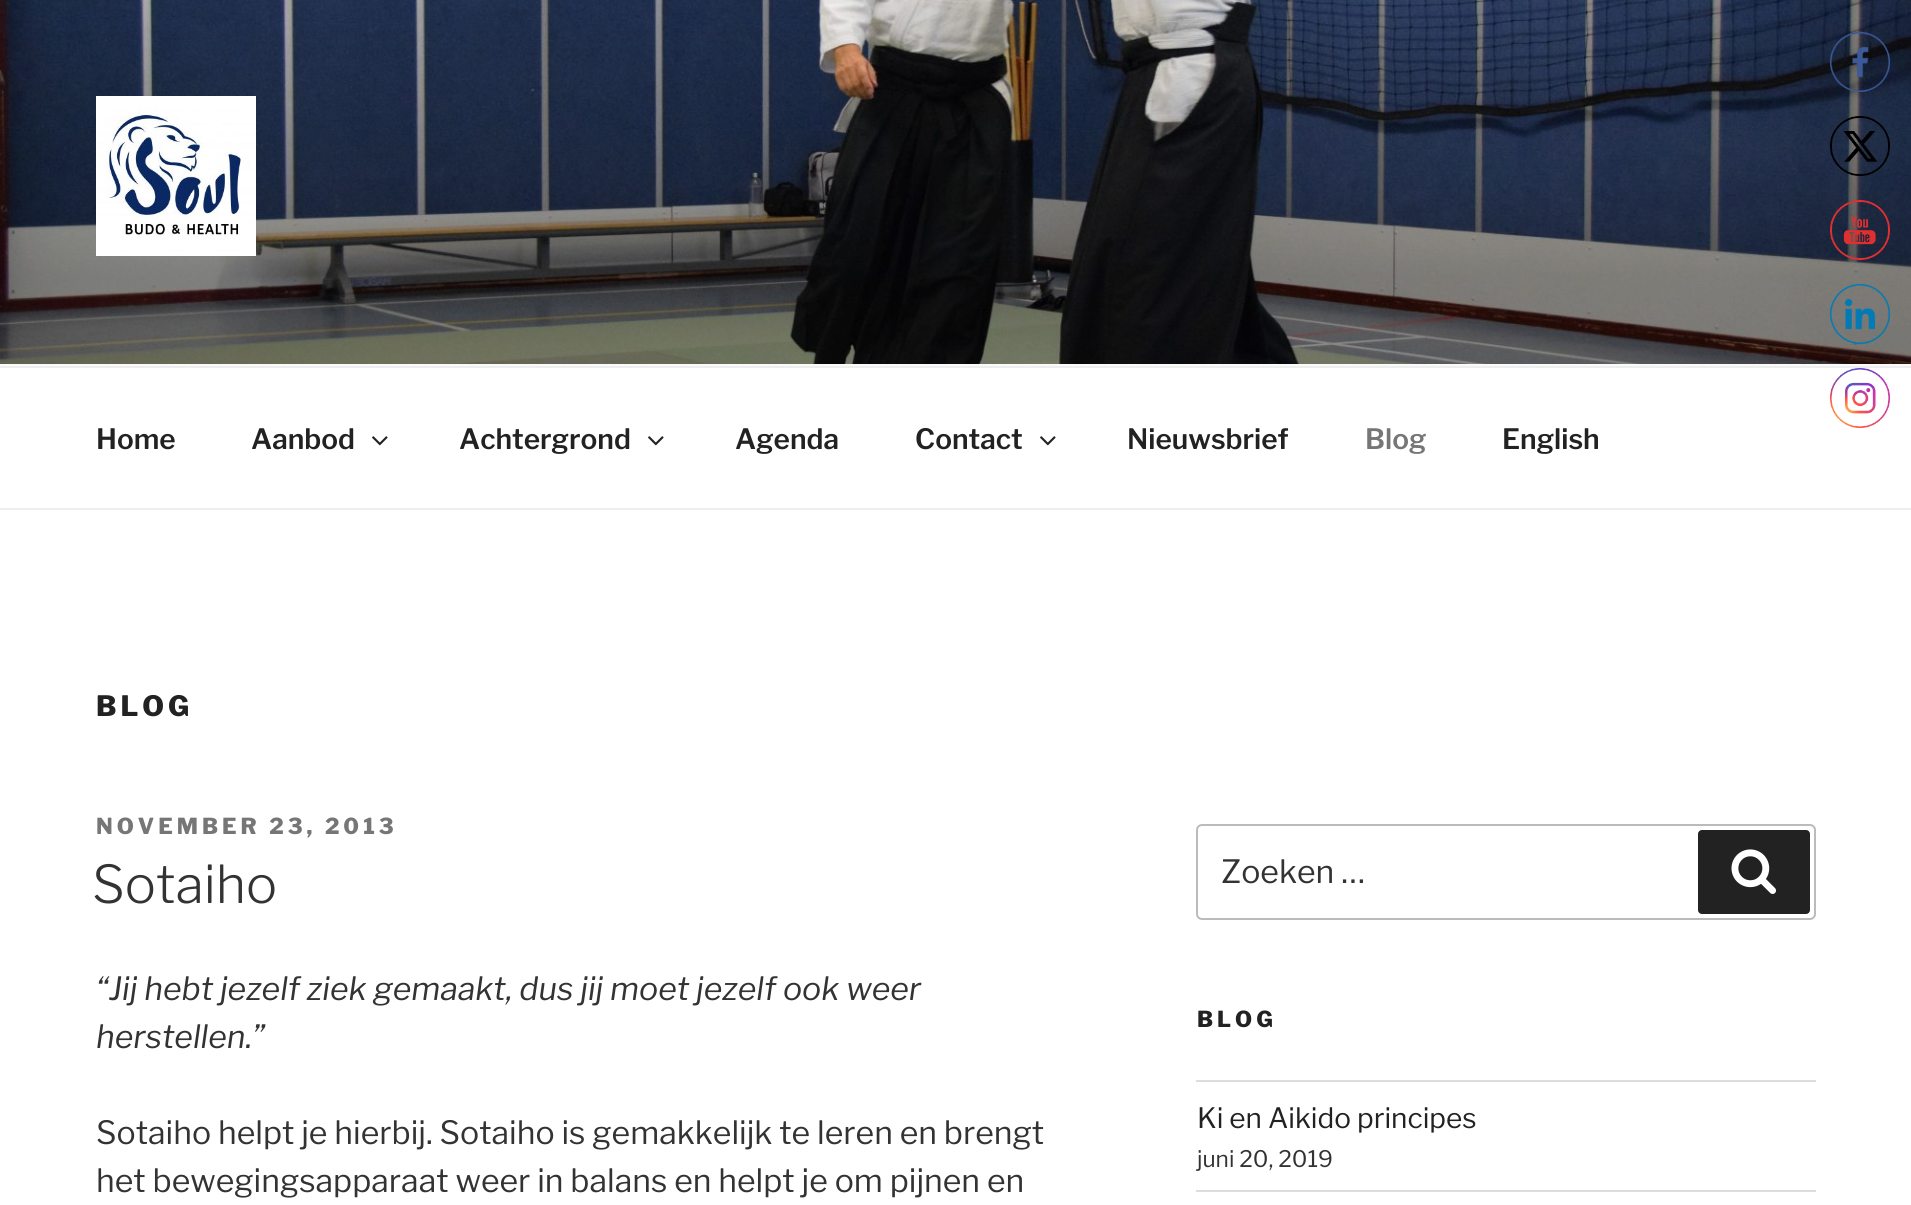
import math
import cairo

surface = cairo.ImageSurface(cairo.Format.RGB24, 1911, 1205)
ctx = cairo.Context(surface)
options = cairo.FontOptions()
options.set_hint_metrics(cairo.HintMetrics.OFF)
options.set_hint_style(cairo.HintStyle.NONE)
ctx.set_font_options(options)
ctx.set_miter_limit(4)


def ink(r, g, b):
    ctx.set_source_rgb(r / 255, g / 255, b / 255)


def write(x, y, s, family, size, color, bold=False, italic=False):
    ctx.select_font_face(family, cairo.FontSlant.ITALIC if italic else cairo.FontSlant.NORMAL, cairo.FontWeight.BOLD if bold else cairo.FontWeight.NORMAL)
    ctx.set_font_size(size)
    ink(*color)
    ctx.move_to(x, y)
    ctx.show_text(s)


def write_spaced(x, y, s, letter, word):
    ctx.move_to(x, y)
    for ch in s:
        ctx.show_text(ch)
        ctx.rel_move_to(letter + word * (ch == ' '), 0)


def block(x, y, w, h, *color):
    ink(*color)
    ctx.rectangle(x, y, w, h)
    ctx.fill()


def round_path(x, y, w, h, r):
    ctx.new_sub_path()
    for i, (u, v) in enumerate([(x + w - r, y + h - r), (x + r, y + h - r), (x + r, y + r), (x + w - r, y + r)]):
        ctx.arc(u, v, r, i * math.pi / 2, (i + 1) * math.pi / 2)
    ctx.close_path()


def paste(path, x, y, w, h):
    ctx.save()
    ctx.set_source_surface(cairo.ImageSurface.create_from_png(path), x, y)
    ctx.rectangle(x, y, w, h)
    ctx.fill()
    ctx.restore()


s1 = dict(family="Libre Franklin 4 Thin", size=28, color=(34, 34, 34))
s2 = dict(family="Libre Franklin 4 Thin", size=28, color=(118, 118, 118))
s3 = dict(family="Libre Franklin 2 Thin", size=52, color=(51, 51, 51))
s4 = dict(family="Libre Franklin Thin", size=32, color=(51, 51, 51), italic=True)
s5 = dict(family="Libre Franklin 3 Thin", size=32, color=(51, 51, 51))
s6 = dict(family="Libre Franklin 3 Thin", size=28, color=(34, 34, 34))
s7 = dict(family="Libre Franklin 3 Thin", size=22.75, color=(51, 51, 51))

ink(255, 255, 255)
ctx.paint()
paste("pic6.png", 0, 0, 1911, 364)
paste("pic1.png", 1830, 32, 60, 60)
paste("pic2.png", 1830, 116, 60, 60)
paste("pic3.png", 1830, 200, 60, 60)
paste("pic4.png", 1830, 284, 60, 60)
paste("pic5.png", 1830, 368, 60, 60)
block(0, 364, 1911, 2, 250, 250, 250)
paste("pic7.png", 96, 96, 160, 160)
block(0, 366, 1911, 2, 238, 238, 238)
block(0, 508, 1911, 2, 238, 238, 238)
write(96, 449, "Home", **s1)
write(251, 449, "Aanbod", **s1)
paste("pic8.png", 372, 436, 16, 10)
write(459, 449, "Achtergrond", **s1)
paste("pic8.png", 648, 436, 16, 10)
write(735, 449, "Agenda", **s1)
write(915, 449, "Contact", **s1)
paste("pic8.png", 1040, 436, 16, 10)
write(1127, 449, "Nieuwsbrief", **s1)
write(1365, 449, "Blog", **s2)
write(1502, 449, "English", **s1)
ctx.select_font_face("Libre Franklin Thin")
write_spaced(96, 716, "BLOG", 4, 0)
ctx.set_font_size(22)
ink(118, 118, 118)
write_spaced(96, 834, "NOVEMBER 23, 2013", 4, 0)
write(92, 903, "Sotaiho", **s3)
write(96, 1000, "“Jij hebt jezelf ziek gemaakt, dus jij moet jezelf ook weer", **s4)
write(96, 1048, "herstellen.”", **s4)
write(96, 1144, "Sotaiho helpt je hierbij. Sotaiho is gemakkelijk te leren en brengt", **s5)
write(96, 1192, "het bewegingsapparaat weer in balans en helpt je om pijnen en", **s5)
round_path(1197, 825, 618, 94, 5)
ink(187, 187, 187)
ctx.stroke()
write(1221, 883, "Zoeken …", **s5)
ink(34, 34, 34)
round_path(1698, 830, 112, 84, 4)
ctx.fill()
paste("pic9.png", 1731, 849, 46, 45)
ctx.select_font_face("Libre Franklin Thin")
ctx.set_font_size(22)
write_spaced(1197, 1027, "BLOG", 4, 0)
block(1196, 1080, 620, 2, 221, 221, 221)
block(1196, 1190, 620, 2, 221, 221, 221)
write(1197, 1128, "Ki en Aikido principes", **s6)
write(1197, 1167, "juni 20, 2019", **s7)
surface.write_to_png("screenshot.png")
